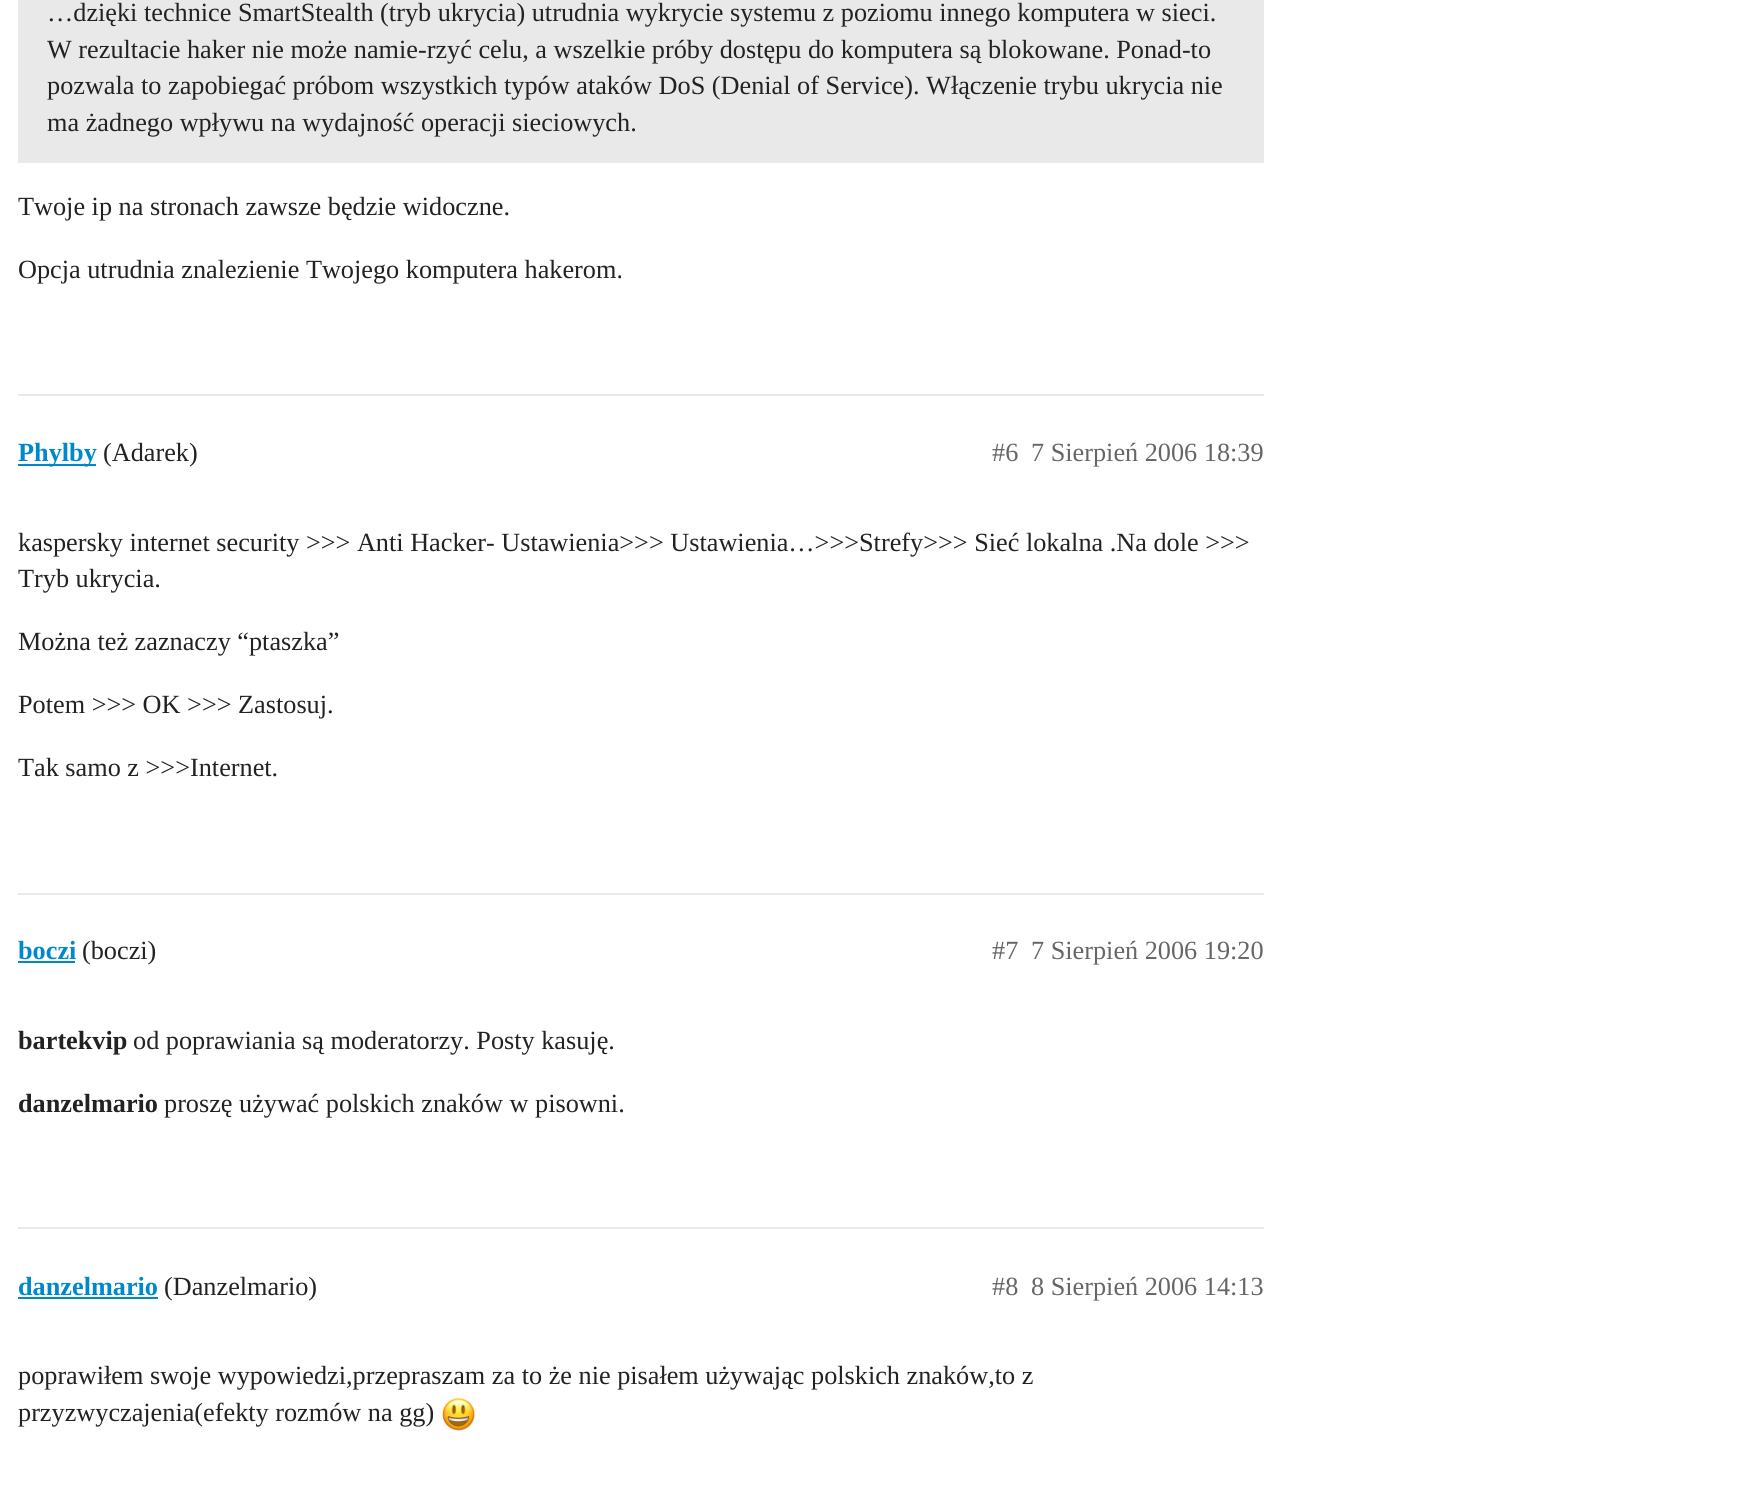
import math
import cairo

surface = cairo.ImageSurface(cairo.Format.RGB24, 1755, 1509)
ctx = cairo.Context(surface)
options = cairo.FontOptions()
options.set_hint_metrics(cairo.HintMetrics.OFF)
options.set_hint_style(cairo.HintStyle.NONE)
ctx.set_font_options(options)
ctx.set_miter_limit(4)


def ink(r, g, b):
    ctx.set_source_rgb(r / 255, g / 255, b / 255)


def write(x, y, s, family, size, color, bold=False, italic=False):
    ctx.select_font_face(family, cairo.FontSlant.ITALIC if italic else cairo.FontSlant.NORMAL, cairo.FontWeight.BOLD if bold else cairo.FontWeight.NORMAL)
    ctx.set_font_size(size)
    ink(*color)
    ctx.move_to(x, y)
    ctx.show_text(s)


def block(x, y, w, h, *color):
    ink(*color)
    ctx.rectangle(x, y, w, h)
    ctx.fill()


def paste(path, x, y, w, h):
    ctx.save()
    ctx.set_source_surface(cairo.ImageSurface.create_from_png(path), x, y)
    ctx.rectangle(x, y, w, h)
    ctx.fill()
    ctx.restore()


s1 = dict(family="Liberation Serif", size=26.25, color=(34, 34, 34))
s2 = dict(family="Liberation Serif", size=26.25, color=(0, 136, 204), bold=True)
s3 = dict(family="Liberation Serif", size=26.25, color=(102, 102, 102))
s4 = dict(family="Liberation Serif", size=26.25, color=(34, 34, 34), bold=True)

ink(255, 255, 255)
ctx.paint()
block(18, 0, 1246, 163, 233, 233, 233)
write(47, 21, "…dzięki technice SmartStealth (tryb ukrycia) utrudnia wykrycie systemu z poziomu innego komputera w sieci.", **s1)
write(47, 58, "W rezultacie haker nie może namie-rzyć celu, a wszelkie próby dostępu do komputera są blokowane. Ponad-to", **s1)
write(47, 94, "pozwala to zapobiegać próbom wszystkich typów ataków DoS (Denial of Service). Włączenie trybu ukrycia nie", **s1)
write(47, 131, "ma żadnego wpływu na wydajność operacji sieciowych.", **s1)
write(18, 215, "Twoje ip na stronach zawsze będzie widoczne.", **s1)
write(18, 278, "Opcja utrudnia znalezienie Twojego komputera hakerom.", **s1)
block(18, 394, 1246, 2, 233, 233, 233)
block(18, 464, 78, 2, 0, 136, 204)
write(18, 461, "Phylby", **s2)
write(103, 461, "(Adarek)", **s1)
write(992, 461, "#6", **s3)
write(1031, 461, "7 Sierpień 2006 18:39", **s3)
write(18, 551, "kaspersky internet security >>> Anti Hacker- Ustawienia>>> Ustawienia…>>>Strefy>>> Sieć lokalna .Na dole >>>", **s1)
write(18, 587, "Tryb ukrycia.", **s1)
write(18, 650, "Można też zaznaczy “ptaszka”", **s1)
write(18, 713, "Potem >>> OK >>> Zastosuj.", **s1)
write(18, 776, "Tak samo z >>>Internet.", **s1)
block(18, 893, 1246, 2, 233, 233, 233)
write(18, 959, "boczi", **s2)
block(18, 961, 57, 2, 0, 136, 204)
write(82, 959, "(boczi)", **s1)
write(992, 959, "#7", **s3)
write(1031, 959, "7 Sierpień 2006 19:20", **s3)
write(18, 1049, "bartekvip", **s4)
write(133, 1049, "od poprawiania są moderatorzy. Posty kasuję.", **s1)
write(18, 1112, "danzelmario", **s4)
write(164, 1112, "proszę używać polskich znaków w pisowni.", **s1)
block(18, 1227, 1246, 2, 233, 233, 233)
write(18, 1295, "danzelmario", **s2)
block(18, 1297, 140, 2, 0, 136, 204)
write(164, 1295, "(Danzelmario)", **s1)
write(992, 1295, "#8", **s3)
write(1031, 1295, "8 Sierpień 2006 14:13", **s3)
write(18, 1384, "poprawiłem swoje wypowiedzi,przepraszam za to że nie pisałem używając polskich znaków,to z", **s1)
write(18, 1421, "przyzwyczajenia(efekty rozmów na gg)", **s1)
paste("pic1.png", 442, 1397, 33, 34)
surface.write_to_png("screenshot.png")
